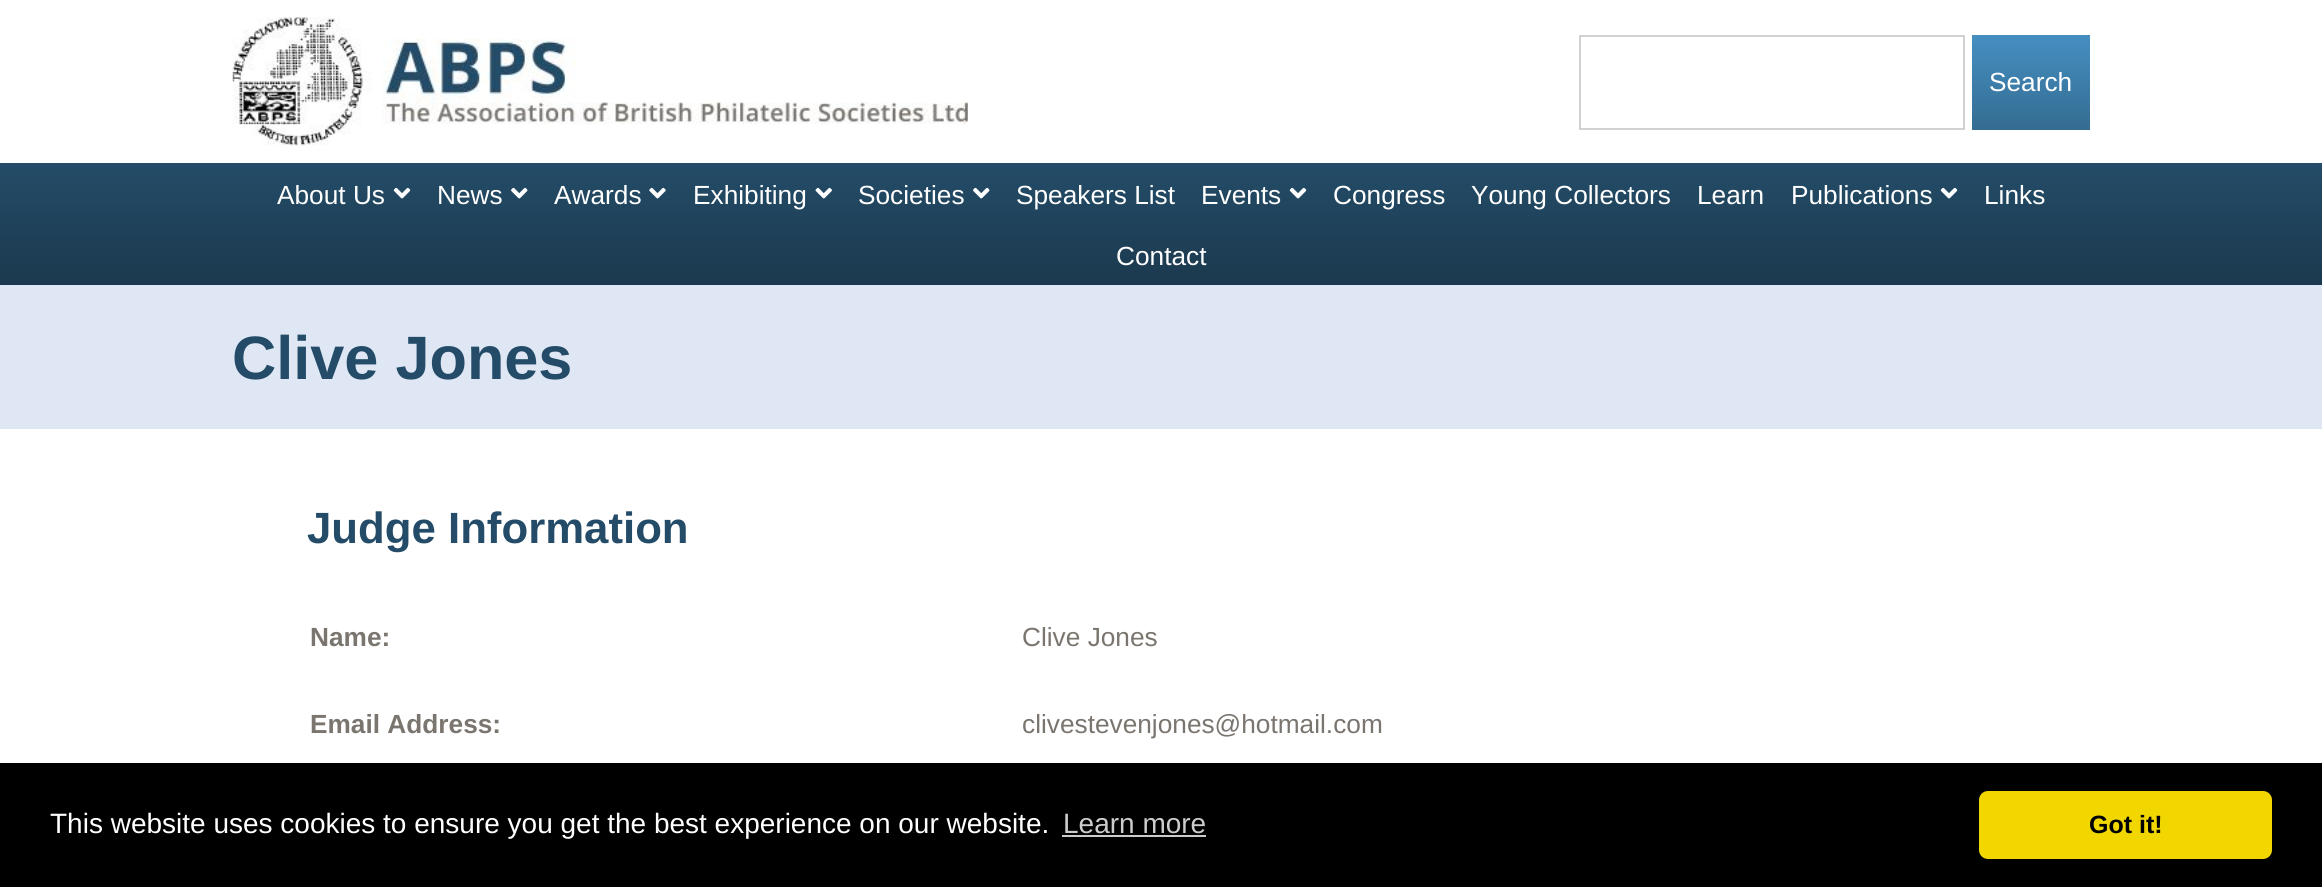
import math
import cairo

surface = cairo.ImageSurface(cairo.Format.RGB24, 2322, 887)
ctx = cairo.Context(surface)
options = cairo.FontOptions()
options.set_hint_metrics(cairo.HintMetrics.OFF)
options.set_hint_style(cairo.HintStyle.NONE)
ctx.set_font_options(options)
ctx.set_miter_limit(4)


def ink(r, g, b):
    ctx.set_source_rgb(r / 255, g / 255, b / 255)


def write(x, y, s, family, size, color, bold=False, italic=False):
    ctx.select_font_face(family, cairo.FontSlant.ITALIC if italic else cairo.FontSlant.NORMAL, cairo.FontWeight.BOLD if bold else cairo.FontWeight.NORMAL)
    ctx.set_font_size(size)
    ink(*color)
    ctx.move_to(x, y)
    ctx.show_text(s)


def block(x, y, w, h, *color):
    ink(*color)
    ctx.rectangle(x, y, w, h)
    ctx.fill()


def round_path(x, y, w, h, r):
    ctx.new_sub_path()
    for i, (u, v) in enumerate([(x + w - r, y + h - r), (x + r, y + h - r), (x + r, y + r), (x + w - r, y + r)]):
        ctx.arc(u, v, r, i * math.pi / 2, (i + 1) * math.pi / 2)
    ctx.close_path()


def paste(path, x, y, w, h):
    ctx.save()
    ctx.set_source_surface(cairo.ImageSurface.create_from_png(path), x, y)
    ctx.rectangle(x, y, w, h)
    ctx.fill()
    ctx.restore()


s1 = dict(family="Liberation Sans", size=26.25, color=(255, 255, 255))
s2 = dict(family="Liberation Sans", size=61.25, color=(36, 76, 104), bold=True)
s3 = dict(family="Liberation Sans", size=43.75, color=(36, 76, 104), bold=True)
s4 = dict(family="Liberation Sans", size=26.25, color=(123, 117, 111), bold=True)
s5 = dict(family="Liberation Sans", size=26.25, color=(123, 117, 111))
s6 = dict(family="Liberation Sans", size=28, color=(255, 255, 255))
s7 = dict(family="Liberation Sans", size=28, color=(204, 204, 204))
s8 = dict(family="Liberation Sans", size=25, color=(0, 0, 0), bold=True)

ink(255, 255, 255)
ctx.paint()
paste("pic1.png", 232, 17, 736, 129)
ctx.rectangle(1580, 36, 384, 93)
ink(209, 209, 209)
ctx.stroke()
gradient = cairo.LinearGradient(2031, 35, 2031, 130)
gradient.add_color_stop_rgba(0, 0.271, 0.561, 0.757, 1)
gradient.add_color_stop_rgba(1, 0.204, 0.424, 0.573, 1)
ctx.set_source(gradient)
ctx.rectangle(1972, 35, 118, 95)
ctx.fill()
write(1989, 91, "Search", **s1)
gradient = cairo.LinearGradient(1161, 163, 1161, 285)
gradient.add_color_stop_rgba(0, 0.141, 0.298, 0.408, 1)
gradient.add_color_stop_rgba(1, 0.106, 0.224, 0.306, 1)
ctx.set_source(gradient)
ctx.rectangle(0, 163, 2322, 122)
ctx.fill()
write(277, 204, "About Us", **s1)
paste("pic2.png", 393, 187, 18, 12)
write(437, 204, "News", **s1)
paste("pic3.png", 511, 187, 17, 12)
write(554, 204, "Awards", **s1)
paste("pic4.png", 649, 187, 17, 12)
write(693, 204, "Exhibiting", **s1)
paste("pic5.png", 815, 187, 17, 12)
write(858, 204, "Societies", **s1)
paste("pic3.png", 973, 187, 17, 12)
write(1016, 204, "Speakers List", **s1)
write(1201, 204, "Events", **s1)
paste("pic2.png", 1289, 187, 18, 12)
write(1333, 204, "Congress", **s1)
write(1471, 204, "Young Collectors", **s1)
write(1697, 204, "Learn", **s1)
write(1791, 204, "Publications", **s1)
paste("pic2.png", 1940, 187, 18, 12)
write(1984, 204, "Links", **s1)
write(1116, 265, "Contact", **s1)
block(0, 285, 2322, 144, 224, 231, 244)
write(232, 379, "Clive Jones", **s2)
write(307, 543, "Judge Information", **s3)
write(310, 646, "Name:", **s4)
write(1022, 646, "Clive Jones", **s5)
write(310, 733, "Email Address:", **s4)
write(1022, 733, "clivestevenjones@hotmail.com", **s5)
block(0, 763, 2322, 124, 0, 0, 0)
write(50, 833, "This website uses cookies to ensure you get the best experience on our website.", **s6)
write(1063, 833, "Learn more", **s7)
block(1062, 835, 144, 2, 204, 204, 204)
ink(241, 214, 0)
round_path(1979, 791, 293, 68, 9)
ctx.fill()
write(2089, 833, "Got it!", **s8)
surface.write_to_png("screenshot.png")
